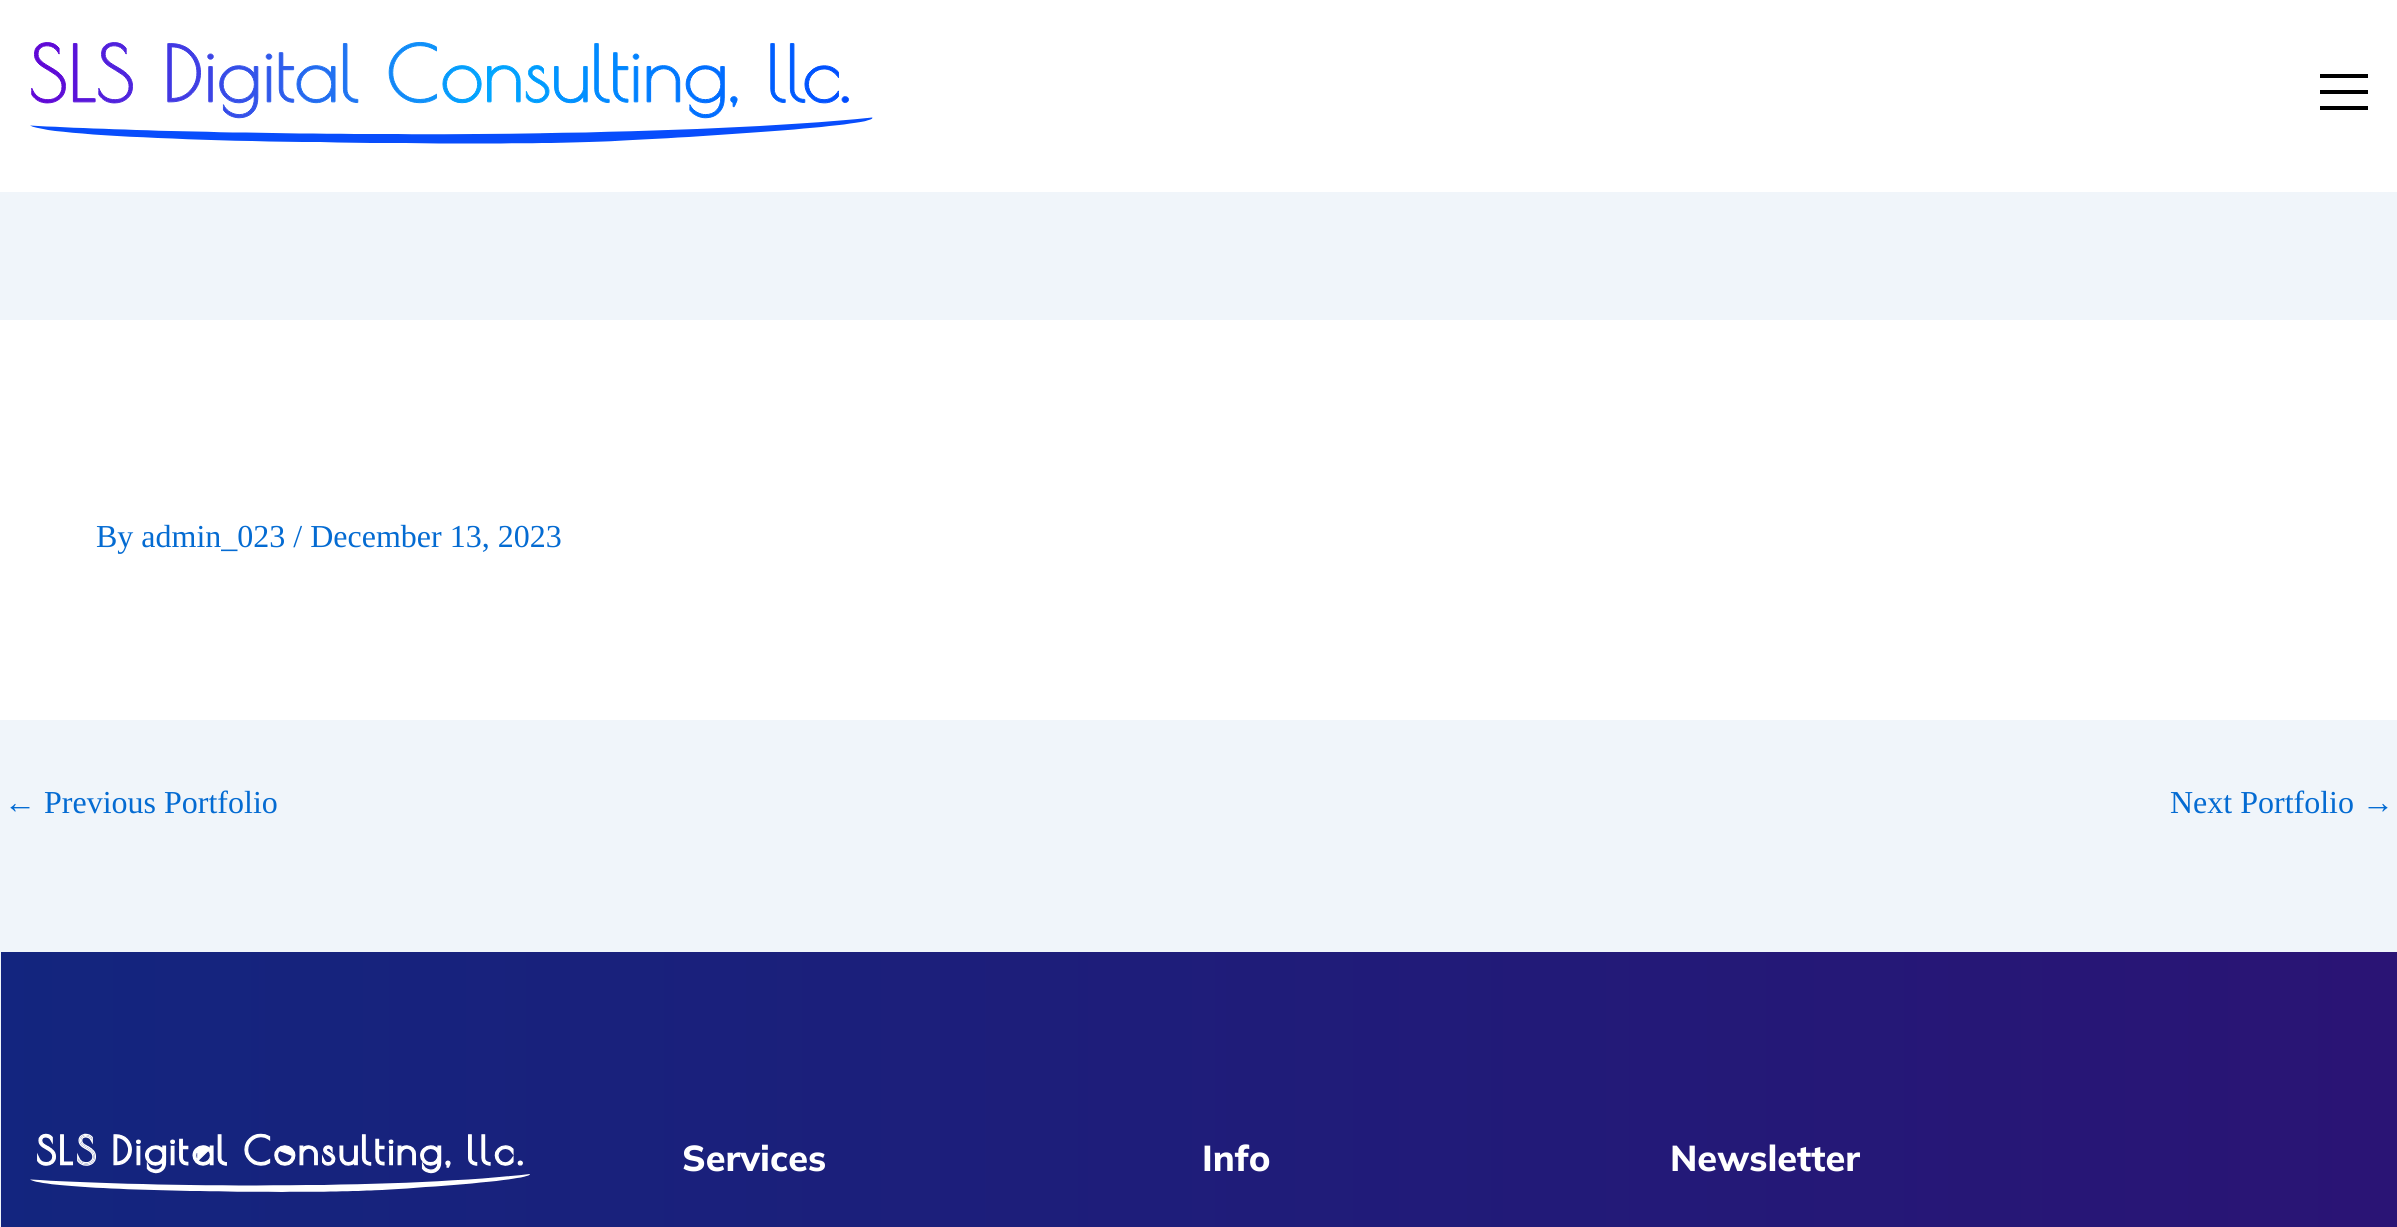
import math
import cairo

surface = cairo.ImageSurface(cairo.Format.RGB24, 2397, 1227)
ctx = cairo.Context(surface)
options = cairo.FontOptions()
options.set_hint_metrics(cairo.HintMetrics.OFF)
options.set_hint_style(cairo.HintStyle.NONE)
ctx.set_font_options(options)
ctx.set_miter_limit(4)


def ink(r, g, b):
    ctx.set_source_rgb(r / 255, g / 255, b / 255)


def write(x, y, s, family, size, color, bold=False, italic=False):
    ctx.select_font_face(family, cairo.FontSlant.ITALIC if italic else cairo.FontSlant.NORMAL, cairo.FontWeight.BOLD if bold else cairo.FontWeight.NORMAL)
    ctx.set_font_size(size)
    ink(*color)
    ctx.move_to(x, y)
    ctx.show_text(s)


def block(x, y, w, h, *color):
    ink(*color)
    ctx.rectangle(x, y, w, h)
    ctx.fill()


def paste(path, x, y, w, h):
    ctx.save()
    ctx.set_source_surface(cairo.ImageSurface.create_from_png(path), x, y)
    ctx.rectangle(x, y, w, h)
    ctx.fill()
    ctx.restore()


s1 = dict(family="Liberation Serif", size=32, color=(4, 107, 210))
s2 = dict(family="Mulish ExtraBold", size=36, color=(255, 255, 255))

ink(240, 245, 250)
ctx.paint()
block(0, 0, 2397, 192, 255, 255, 255)
paste("pic1.png", 30, 41, 843, 103)
block(2320, 74, 48, 4, 0, 0, 0)
block(2320, 90, 48, 4, 0, 0, 0)
block(2320, 106, 48, 4, 0, 0, 0)
block(0, 320, 2397, 400, 255, 255, 255)
write(96, 547, "By admin_023 / December 13, 2023", **s1)
write(4, 813, "← Previous Portfolio", **s1)
write(2170, 813, "Next Portfolio →", **s1)
gradient = cairo.LinearGradient(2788, 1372, -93, 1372)
gradient.add_color_stop_rgba(0, 0.18, 0.067, 0.451, 1)
gradient.add_color_stop_rgba(1, 0.071, 0.149, 0.498, 1)
ctx.set_source(gradient)
ctx.rectangle(1, 952, 2396, 275)
ctx.fill()
paste("pic2.png", 30, 1133, 500, 59)
write(682, 1171, "Services", **s2)
write(1202, 1171, "Info", **s2)
write(1670, 1171, "Newsletter", **s2)
surface.write_to_png("screenshot.png")
